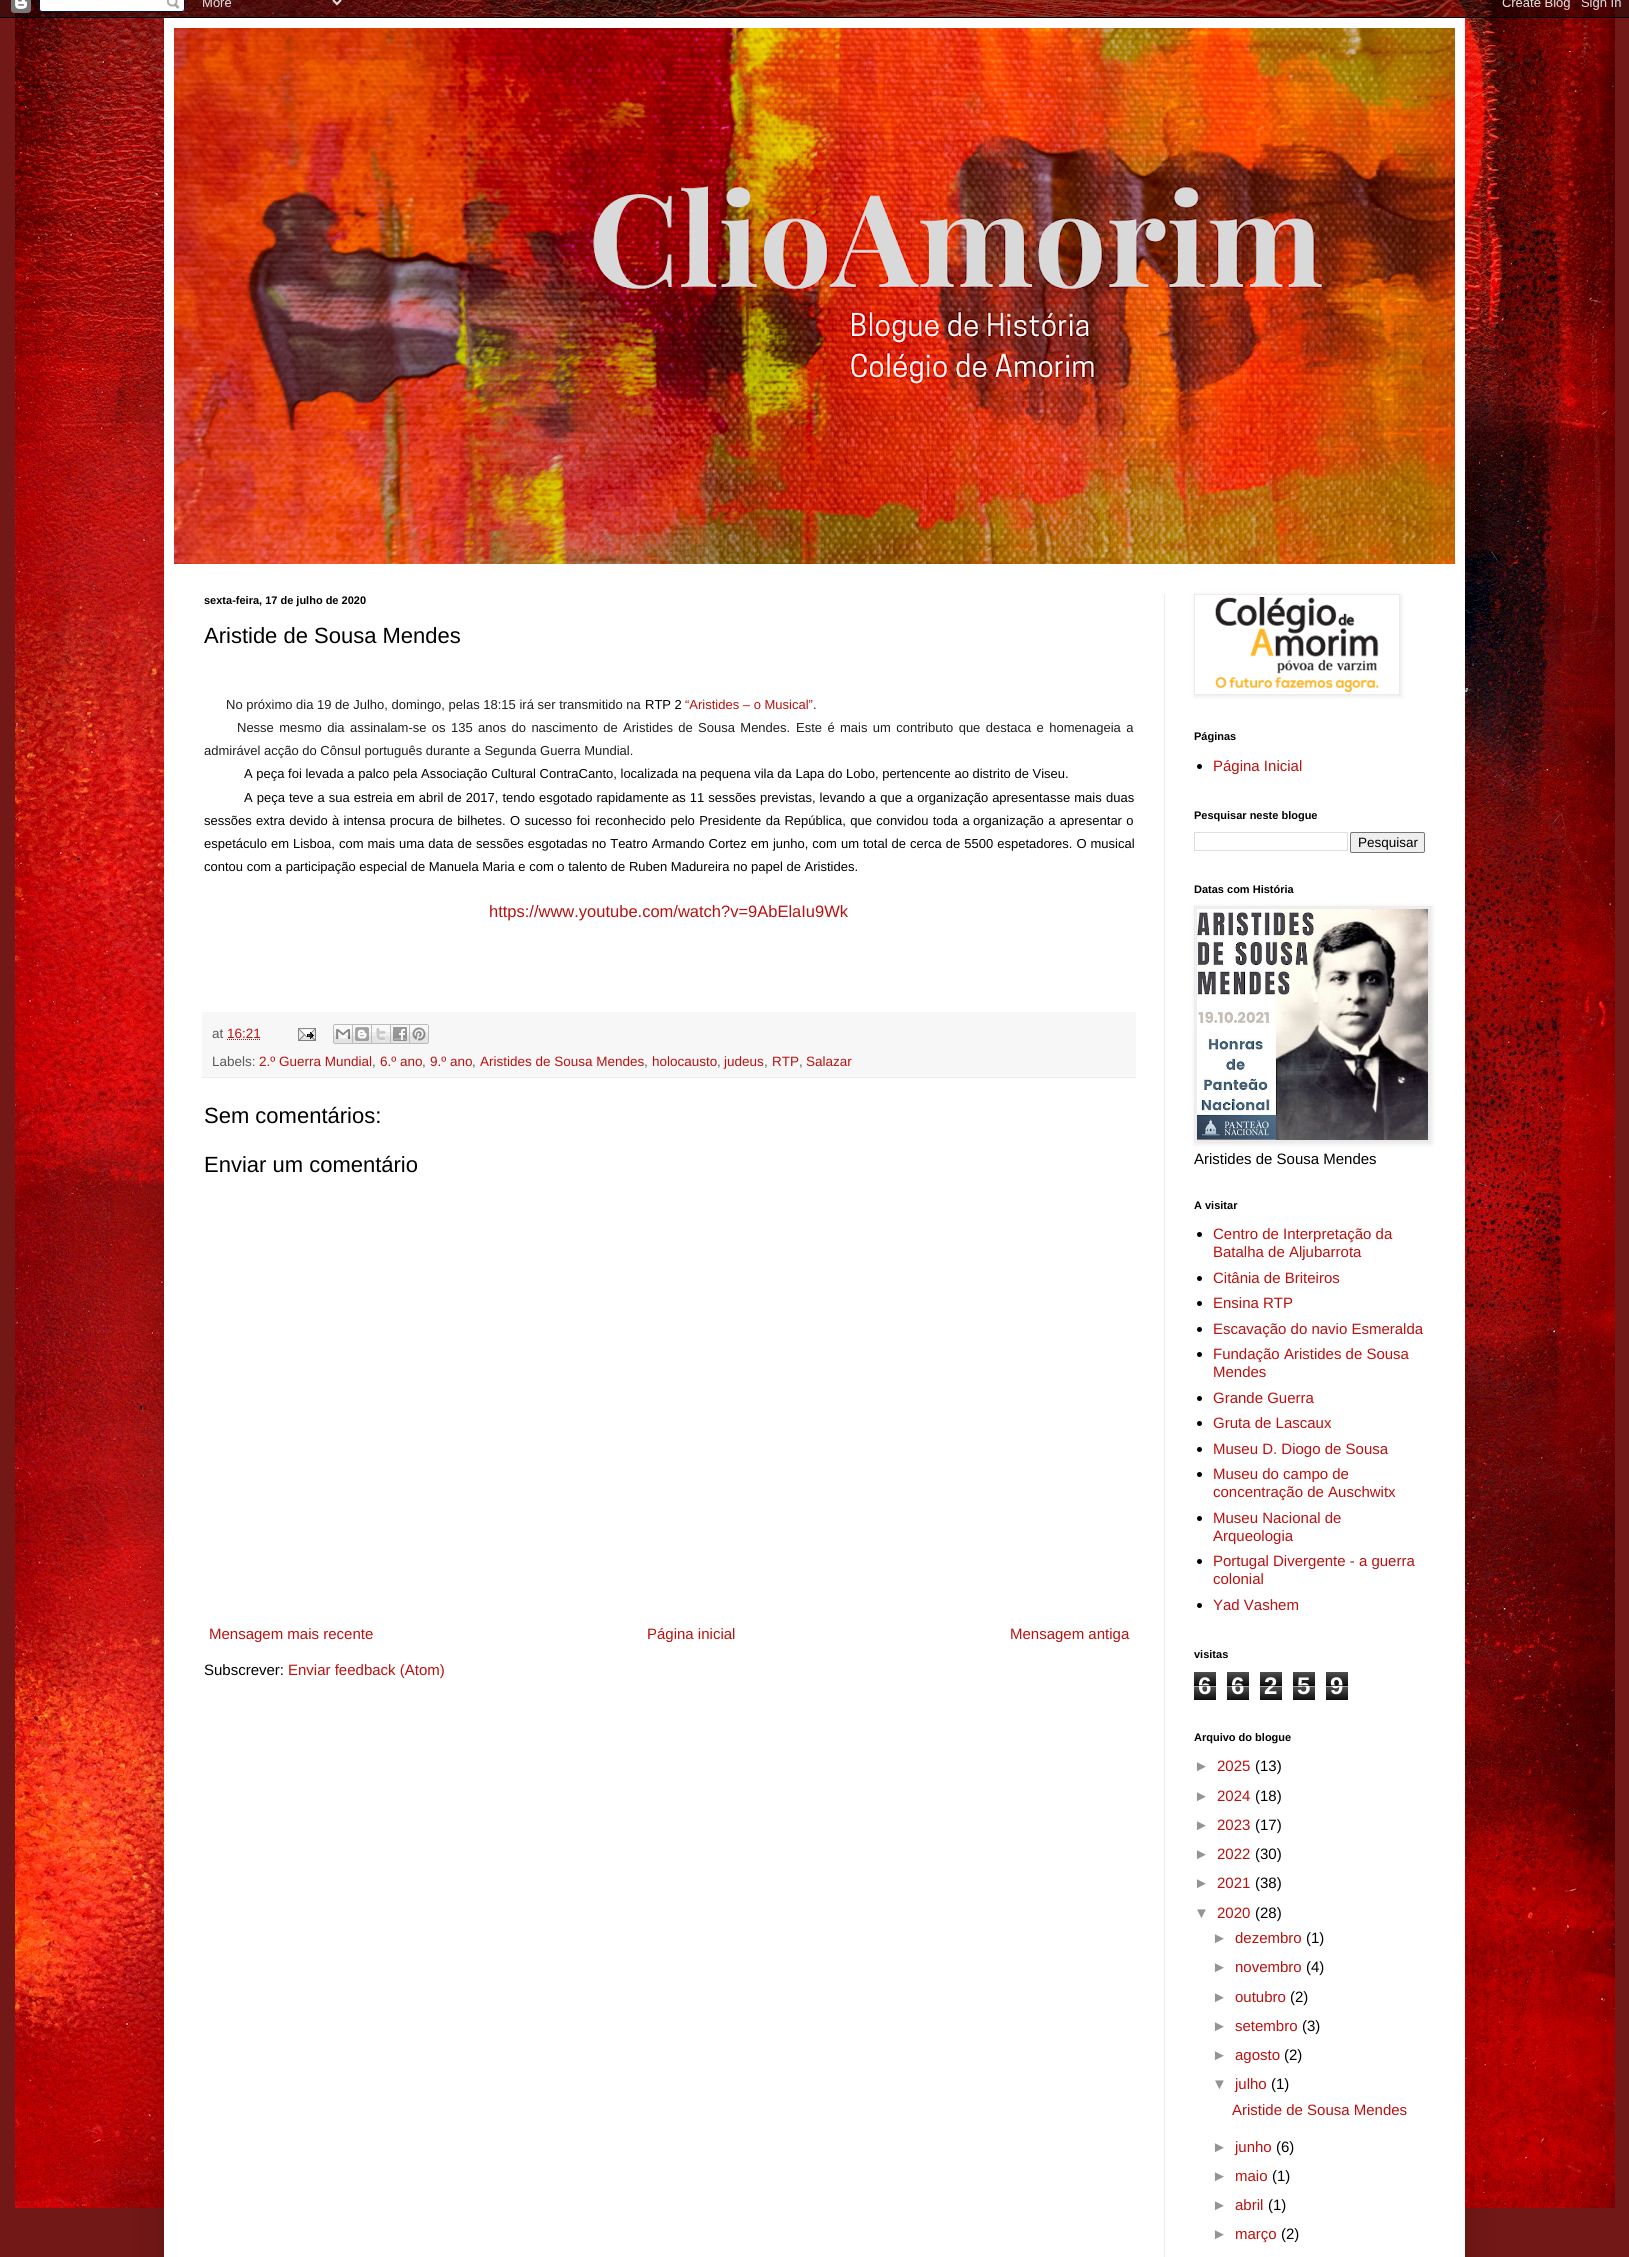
import math
import cairo

surface = cairo.ImageSurface(cairo.Format.RGB24, 1629, 2257)
ctx = cairo.Context(surface)
options = cairo.FontOptions()
options.set_hint_metrics(cairo.HintMetrics.OFF)
options.set_hint_style(cairo.HintStyle.NONE)
ctx.set_font_options(options)
ctx.set_miter_limit(4)


def ink(r, g, b):
    ctx.set_source_rgb(r / 255, g / 255, b / 255)


def write(x, y, s, family, size, color, bold=False, italic=False):
    ctx.select_font_face(family, cairo.FontSlant.ITALIC if italic else cairo.FontSlant.NORMAL, cairo.FontWeight.BOLD if bold else cairo.FontWeight.NORMAL)
    ctx.set_font_size(size)
    ink(*color)
    ctx.move_to(x, y)
    ctx.show_text(s)


def write_spaced(x, y, s, letter, word):
    ctx.move_to(x, y)
    for ch in s:
        ctx.show_text(ch)
        ctx.rel_move_to(letter + word * (ch == ' '), 0)


def block(x, y, w, h, *color):
    ink(*color)
    ctx.rectangle(x, y, w, h)
    ctx.fill()


def round_path(x, y, w, h, r):
    ctx.new_sub_path()
    for i, (u, v) in enumerate([(x + w - r, y + h - r), (x + r, y + h - r), (x + r, y + r), (x + w - r, y + r)]):
        ctx.arc(u, v, r, i * math.pi / 2, (i + 1) * math.pi / 2)
    ctx.close_path()


def blur_box(x, y, w, h, r, blur, alpha):
    ctx.push_group_with_content(cairo.Content.ALPHA)
    ctx.set_operator(cairo.Operator.SOURCE)
    for i in range(15, -16, -2):
        e = blur * i / 6
        if min(w, h) + 2 * e > 0:
            ctx.set_source_rgba(0, 0, 0, alpha * math.erfc((i - 1) / 8.5) / 2)
            round_path(x - e, y - e, w + 2 * e, h + 2 * e, max(0, min(r + e + blur * .6, min(w, h) / 2 + e)))
            ctx.fill()
    ctx.mask(ctx.pop_group())


def paste(path, x, y, w, h):
    ctx.save()
    ctx.set_source_surface(cairo.ImageSurface.create_from_png(path), x, y)
    ctx.rectangle(x, y, w, h)
    ctx.fill()
    ctx.restore()


s1 = dict(family="Liberation Sans", size=11, color=(0, 0, 0), bold=True)
s2 = dict(family="Liberation Sans", size=22, color=(0, 0, 0))
s3 = dict(family="Liberation Sans", size=13, color=(28, 30, 33))
s4 = dict(family="Liberation Sans", size=13, color=(0, 0, 0))
s5 = dict(family="Liberation Sans", size=13, color=(185, 17, 15))
s6 = dict(family="Liberation Sans", size=16.5, color=(185, 17, 15))
s7 = dict(family="Liberation Sans", size=13.5, color=(89, 89, 89))
s8 = dict(family="Liberation Sans", size=13.5, color=(185, 17, 15))
s9 = dict(family="Liberation Sans", size=15, color=(185, 17, 15))
s10 = dict(family="Liberation Sans", size=15, color=(0, 0, 0))
s11 = dict(family="Liberation Sans", size=13.5, color=(0, 0, 0))
s12 = dict(family="Liberation Sans", size=24, color=(255, 255, 255), bold=True)
s13 = dict(family="Liberation Sans", size=15, color=(148, 148, 148))

ink(114, 24, 23)
ctx.paint()
paste("pic1.png", 15, 0, 1600, 2208)
ink(0, 0, 0)
blur_box(164, 18, 1301, 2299, 0, 20, 0.15)
paste("pic2.png", 0, 0, 1629, 18)
block(164, 18, 1301, 2239, 255, 255, 255)
paste("pic3.png", 174, 28, 1281, 536)
block(1164, 594, 1, 1663, 236, 236, 236)
write(204, 604, "sexta-feira, 17 de julho de 2020", **s1)
write(204, 643, "Aristide de Sousa Mendes", **s2)
write(226, 709, "No próximo dia 19 de Julho, domingo, pelas 18:15 irá ser transmitido na", **s3)
write(645, 709, "RTP 2", **s4)
write(685, 709, "“Aristides – o Musical”", **s5)
write(813, 709, ".", **s3)
write_spaced(237, 732, "Nesse mesmo dia assinalam-se os 135 anos do nascimento de Aristides de Sousa Mendes.", 0, 1.75)
write_spaced(796, 732, "Este é mais um contributo que destaca e homenageia a", 0, 1.75)
write(204, 755, "admirável acção do Cônsul português durante a Segunda Guerra Mundial.", **s3)
write(244, 778, "A peça foi levada a palco pela Associação Cultural ContraCanto, localizada na pequena vila da Lapa do Lobo, pertencente ao distrito de Viseu.", **s4)
write_spaced(244, 802, "A peça teve a sua estreia em abril de 2017, tendo esgotado rapidamente", 0, 0.4)
write_spaced(672, 802, "as 11 sessões previstas, levando a que a organização apresentasse mais", 0, 0.4)
write(1106, 802, "duas", **s4)
write_spaced(204, 825, "sessões extra devido à intensa procura de bilhetes. O sucesso foi", 0, 0.75)
write_spaced(595, 825, "reconhecido pelo Presidente da República, que convidou toda a", 0, 0.75)
write_spaced(973, 825, "organização a apresentar o", 0, 0.75)
write_spaced(204, 848, "espetáculo em Lisboa, com mais uma data de", 0, 0.4)
write_spaced(476, 848, "sessões esgotadas no Teatro Armando Cortez em junho, com um total de", 0, 0.4)
write_spaced(910, 848, "cerca de 5500 espetadores. O musical", 0, 0.4)
write(204, 871, "contou com a participação especial de Manuela Maria e com o talento de Ruben Madureira no papel de Aristides.", **s4)
write(489, 917, "https://www.youtube.com/watch?v=9AbElaIu9Wk", **s6)
block(202, 1012, 934, 65, 247, 247, 247)
block(202, 1077, 934, 1, 236, 236, 236)
write(212, 1038, "at", **s7)
write(227, 1038, "16:21", **s8)
ctx.new_path()
ctx.move_to(227, 1039.5)
ctx.line_to(261, 1039.5)
ctx.set_line_width(1)
ctx.set_dash([1, 1])
ctx.stroke()
paste("pic4.png", 298, 1028, 18, 13)
paste("pic5.png", 333, 1024, 20, 20)
paste("pic6.png", 353, 1024, 19, 20)
paste("pic7.png", 372, 1024, 19, 20)
paste("pic8.png", 391, 1024, 19, 20)
paste("pic9.png", 410, 1024, 19, 20)
write(212, 1066, "Labels:", **s7)
write(259, 1066, "2.º Guerra Mundial", **s8)
write(372, 1066, ",", **s7)
write(380, 1066, "6.º ano", **s8)
write(422, 1066, ",", **s7)
write(430, 1066, "9.º ano", **s8)
write(472, 1066, ",", **s7)
write(480, 1066, "Aristides de Sousa Mendes", **s8)
write(644, 1066, ",", **s7)
write(652, 1066, "holocausto", **s8)
write(717, 1066, ",", **s7)
write(724, 1066, "judeus", **s8)
write(764, 1066, ",", **s7)
write(772, 1066, "RTP", **s8)
write(799, 1066, ",", **s7)
write(806, 1066, "Salazar", **s8)
write(204, 1123, "Sem comentários:", **s2)
write(204, 1172, "Enviar um comentário", **s2)
write(209, 1639, "Mensagem mais recente", **s9)
write(647, 1639, "Página inicial", **s9)
write(1010, 1639, "Mensagem antiga", **s9)
write(204, 1675, "Subscrever:", **s10)
write(288, 1675, "Enviar feedback (Atom)", **s9)
ctx.save()
ctx.set_fill_rule(cairo.FillRule.EVEN_ODD)
ctx.new_path()
ctx.move_to(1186, 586)
ctx.line_to(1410, 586)
ctx.line_to(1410, 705)
ctx.line_to(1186, 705)
ctx.close_path()
ctx.move_to(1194, 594)
ctx.line_to(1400, 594)
ctx.line_to(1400, 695)
ctx.line_to(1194, 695)
ctx.close_path()
ctx.clip()
ink(0, 0, 0)
blur_box(1195, 595, 206, 101, 0, 2.5, 0.1)
ctx.restore()
ctx.rectangle(1194.5, 594.5, 205, 100)
ink(236, 236, 236)
ctx.set_dash([])
ctx.stroke()
paste("pic10.png", 1215, 597, 164, 95)
write(1194, 740, "Páginas", **s1)
ctx.new_path()
ctx.arc(1199.5, 766.5, 2.5, 0, 2 * math.pi)
ctx.fill()
write(1213, 771, "Página Inicial", **s9)
write(1194, 819, "Pesquisar neste blogue", **s1)
ctx.rectangle(1194.5, 832.5, 153, 18)
ink(221, 221, 221)
ctx.stroke()
ink(239, 239, 239)
round_path(1350.5, 832.5, 74, 20, 1.5)
ctx.fill_preserve()
ink(118, 118, 118)
ctx.stroke()
write(1358, 847, "Pesquisar", **s11)
write(1194, 893, "Datas com História", **s1)
ink(0, 0, 0)
blur_box(1195, 907, 237, 237, 0, 2.5, 0.1)
ctx.rectangle(1194.5, 906.5, 236, 236)
ink(236, 236, 236)
ctx.stroke()
paste("pic11.png", 1197, 909, 231, 231)
write(1194, 1164, "Aristides de Sousa Mendes", **s10)
write(1194, 1209, "A visitar", **s1)
ctx.new_path()
ctx.arc(1199.5, 1234.5, 2.5, 0, 2 * math.pi)
ctx.fill()
write(1213, 1239, "Centro de Interpretação da", **s9)
write(1213, 1257, "Batalha de Aljubarrota", **s9)
ink(0, 0, 0)
ctx.new_path()
ctx.arc(1199.5, 1278.5, 2.5, 0, 2 * math.pi)
ctx.fill()
write(1213, 1283, "Citânia de Briteiros", **s9)
ink(0, 0, 0)
ctx.new_path()
ctx.arc(1199.5, 1303.5, 2.5, 0, 2 * math.pi)
ctx.fill()
write(1213, 1308, "Ensina RTP", **s9)
ink(0, 0, 0)
ctx.new_path()
ctx.arc(1199.5, 1329.5, 2.5, 0, 2 * math.pi)
ctx.fill()
write(1213, 1334, "Escavação do navio Esmeralda", **s9)
ink(0, 0, 0)
ctx.new_path()
ctx.arc(1199.5, 1354.5, 2.5, 0, 2 * math.pi)
ctx.fill()
write(1213, 1359, "Fundação Aristides de Sousa", **s9)
write(1213, 1377, "Mendes", **s9)
ink(0, 0, 0)
ctx.new_path()
ctx.arc(1199.5, 1398.5, 2.5, 0, 2 * math.pi)
ctx.fill()
write(1213, 1403, "Grande Guerra", **s9)
ink(0, 0, 0)
ctx.new_path()
ctx.arc(1199.5, 1423.5, 2.5, 0, 2 * math.pi)
ctx.fill()
write(1213, 1428, "Gruta de Lascaux", **s9)
ink(0, 0, 0)
ctx.new_path()
ctx.arc(1199.5, 1449.5, 2.5, 0, 2 * math.pi)
ctx.fill()
write(1213, 1454, "Museu D. Diogo de Sousa", **s9)
ink(0, 0, 0)
ctx.new_path()
ctx.arc(1199.5, 1474.5, 2.5, 0, 2 * math.pi)
ctx.fill()
write(1213, 1479, "Museu do campo de", **s9)
write(1213, 1497, "concentração de Auschwitx", **s9)
ink(0, 0, 0)
ctx.new_path()
ctx.arc(1199.5, 1518.5, 2.5, 0, 2 * math.pi)
ctx.fill()
write(1213, 1523, "Museu Nacional de", **s9)
write(1213, 1541, "Arqueologia", **s9)
ink(0, 0, 0)
ctx.new_path()
ctx.arc(1199.5, 1561.5, 2.5, 0, 2 * math.pi)
ctx.fill()
write(1213, 1566, "Portugal Divergente - a guerra", **s9)
write(1213, 1584, "colonial", **s9)
ink(0, 0, 0)
ctx.new_path()
ctx.arc(1199.5, 1605.5, 2.5, 0, 2 * math.pi)
ctx.fill()
write(1213, 1610, "Yad Vashem", **s9)
write(1194, 1658, "visitas", **s1)
paste("pic12.png", 1194, 1672, 22, 28)
write(1198, 1694, "6", **s12)
ctx.set_source_rgba(0, 0, 0, 0.65)
ctx.rectangle(1194, 1685, 22, 1)
ctx.fill()
ctx.set_source_rgba(1, 1, 1, 0.65)
ctx.rectangle(1194, 1686, 22, 1)
ctx.fill()
paste("pic12.png", 1227, 1672, 22, 28)
write(1231, 1694, "6", **s12)
ctx.set_source_rgba(0, 0, 0, 0.65)
ctx.rectangle(1227, 1685, 22, 1)
ctx.fill()
ctx.set_source_rgba(1, 1, 1, 0.65)
ctx.rectangle(1227, 1686, 22, 1)
ctx.fill()
paste("pic12.png", 1260, 1672, 22, 28)
write(1264, 1694, "2", **s12)
ctx.set_source_rgba(0, 0, 0, 0.65)
ctx.rectangle(1260, 1685, 22, 1)
ctx.fill()
ctx.set_source_rgba(1, 1, 1, 0.65)
ctx.rectangle(1260, 1686, 22, 1)
ctx.fill()
paste("pic12.png", 1293, 1672, 22, 28)
write(1297, 1694, "5", **s12)
ctx.set_source_rgba(0, 0, 0, 0.65)
ctx.rectangle(1293, 1685, 22, 1)
ctx.fill()
ctx.set_source_rgba(1, 1, 1, 0.65)
ctx.rectangle(1293, 1686, 22, 1)
ctx.fill()
paste("pic12.png", 1326, 1672, 22, 28)
write(1330, 1694, "9", **s12)
ctx.set_source_rgba(0, 0, 0, 0.65)
ctx.rectangle(1326, 1685, 22, 1)
ctx.fill()
ctx.set_source_rgba(1, 1, 1, 0.65)
ctx.rectangle(1326, 1686, 22, 1)
ctx.fill()
write(1194, 1741, "Arquivo do blogue", **s1)
write(1194, 1771, "►", **s13)
write(1217, 1771, "2025", **s9)
write(1255, 1771, "(13)", **s10)
write(1194, 1801, "►", **s13)
write(1217, 1801, "2024", **s9)
write(1255, 1801, "(18)", **s10)
write(1194, 1830, "►", **s13)
write(1217, 1830, "2023", **s9)
write(1255, 1830, "(17)", **s10)
write(1194, 1859, "►", **s13)
write(1217, 1859, "2022", **s9)
write(1255, 1859, "(30)", **s10)
write(1194, 1888, "►", **s13)
write(1217, 1888, "2021", **s9)
write(1255, 1888, "(38)", **s10)
write(1194, 1918, "▼", **s13)
write(1217, 1918, "2020", **s9)
write(1255, 1918, "(28)", **s10)
write(1212, 1943, "►", **s13)
write(1235, 1943, "dezembro", **s9)
write(1306, 1943, "(1)", **s10)
write(1212, 1972, "►", **s13)
write(1235, 1972, "novembro", **s9)
write(1306, 1972, "(4)", **s10)
write(1212, 2002, "►", **s13)
write(1235, 2002, "outubro", **s9)
write(1290, 2002, "(2)", **s10)
write(1212, 2031, "►", **s13)
write(1235, 2031, "setembro", **s9)
write(1302, 2031, "(3)", **s10)
write(1212, 2060, "►", **s13)
write(1235, 2060, "agosto", **s9)
write(1284, 2060, "(2)", **s10)
write(1212, 2089, "▼", **s13)
write(1235, 2089, "julho", **s9)
write(1271, 2089, "(1)", **s10)
write(1232, 2115, "Aristide de Sousa Mendes", **s9)
write(1212, 2152, "►", **s13)
write(1235, 2152, "junho", **s9)
write(1276, 2152, "(6)", **s10)
write(1212, 2181, "►", **s13)
write(1235, 2181, "maio", **s9)
write(1272, 2181, "(1)", **s10)
write(1212, 2210, "►", **s13)
write(1235, 2210, "abril", **s9)
write(1268, 2210, "(1)", **s10)
write(1212, 2239, "►", **s13)
write(1235, 2239, "março", **s9)
write(1281, 2239, "(2)", **s10)
surface.write_to_png("screenshot.png")
